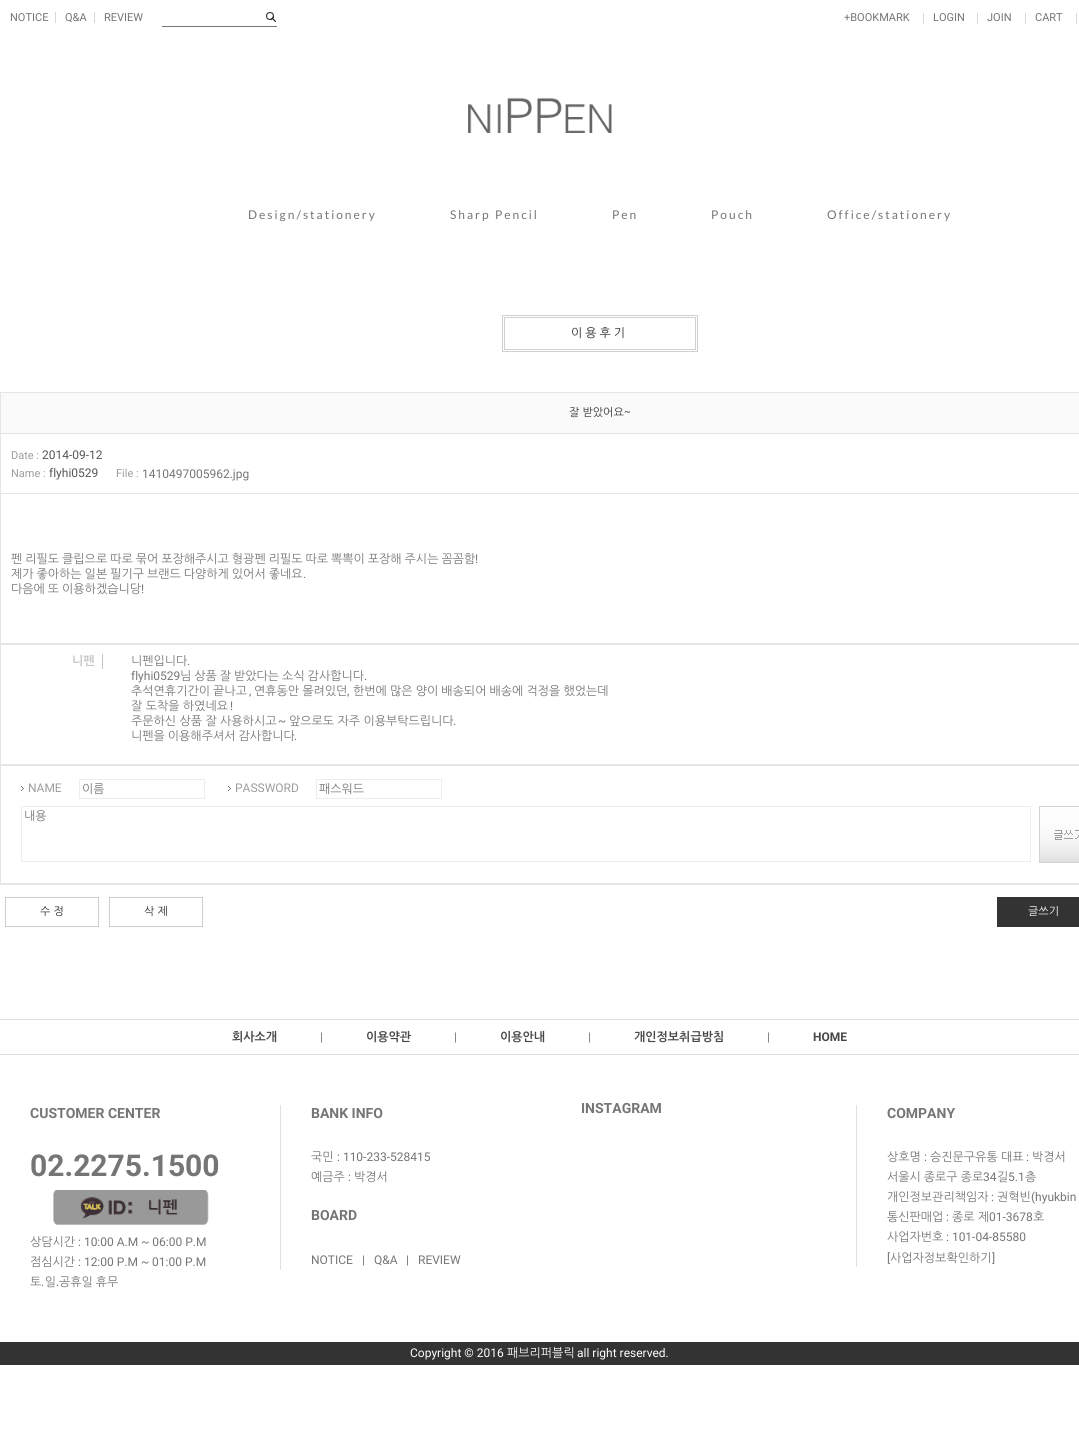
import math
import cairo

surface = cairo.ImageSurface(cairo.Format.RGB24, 1079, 1443)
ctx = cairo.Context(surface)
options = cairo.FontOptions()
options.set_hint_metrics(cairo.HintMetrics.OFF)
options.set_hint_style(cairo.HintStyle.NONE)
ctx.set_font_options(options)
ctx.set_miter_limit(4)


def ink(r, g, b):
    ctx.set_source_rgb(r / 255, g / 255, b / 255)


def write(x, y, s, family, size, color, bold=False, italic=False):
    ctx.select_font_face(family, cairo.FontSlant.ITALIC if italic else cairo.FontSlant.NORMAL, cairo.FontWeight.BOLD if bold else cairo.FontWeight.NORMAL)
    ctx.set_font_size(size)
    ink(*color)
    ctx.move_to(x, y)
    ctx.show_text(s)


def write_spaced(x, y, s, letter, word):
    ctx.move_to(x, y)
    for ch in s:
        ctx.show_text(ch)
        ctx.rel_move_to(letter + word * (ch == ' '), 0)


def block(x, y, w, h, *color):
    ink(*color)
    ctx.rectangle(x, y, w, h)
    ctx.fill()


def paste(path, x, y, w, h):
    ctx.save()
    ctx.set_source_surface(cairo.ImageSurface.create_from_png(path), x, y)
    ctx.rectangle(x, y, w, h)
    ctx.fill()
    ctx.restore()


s1 = dict(family="Roboto", size=11, color=(117, 117, 117))
s2 = dict(family="NanumGothic", size=11, color=(53, 53, 53))
s3 = dict(family="Roboto", size=11, color=(157, 157, 157))
s4 = dict(family="Roboto", size=12, color=(85, 85, 85))
s5 = dict(family="Roboto", size=12, color=(117, 117, 117))
s6 = dict(family="NanumGothic", size=12, color=(197, 197, 197), bold=True)
s7 = dict(family="NanumGothic", size=12, color=(117, 117, 117))
s8 = dict(family="Roboto", size=12, color=(157, 157, 157))
s9 = dict(family="NanumGothic", size=11, color=(46, 46, 46))
s10 = dict(family="NanumGothic", size=11, color=(255, 255, 255))
s11 = dict(family="NanumGothic", size=12, color=(71, 71, 71), bold=True)
s12 = dict(family="Roboto", size=12, color=(71, 71, 71), bold=True)
s13 = dict(family="Roboto", size=14, color=(117, 117, 117), bold=True)
s14 = dict(family="Roboto", size=30, color=(117, 117, 117), bold=True)
s15 = dict(family="Roboto", size=12, color=(255, 255, 255))
s16 = dict(family="NanumGothic", size=12, color=(255, 255, 255))

ink(255, 255, 255)
ctx.paint()
write(10, 21, "NOTICE", **s1)
write(65, 21, "Q&A", **s1)
block(55, 12, 1, 11, 216, 216, 216)
write(104, 21, "REVIEW", **s1)
block(94, 12, 1, 11, 216, 216, 216)
block(162, 26, 115, 1, 117, 117, 117)
paste("pic1.png", 266, 12, 10, 10)
write(844, 21, "+BOOKMARK", **s1)
write(933, 21, "LOGIN", **s1)
block(923, 13, 1, 11, 216, 216, 216)
write(987, 21, "JOIN", **s1)
block(977, 13, 1, 11, 216, 216, 216)
write(1035, 21, "CART", **s1)
block(1025, 13, 1, 11, 216, 216, 216)
block(1076, 13, 1, 11, 216, 216, 216)
paste("pic2.png", 468, 97, 144, 36)
ctx.select_font_face("Lato")
ctx.set_font_size(12)
ink(117, 117, 117)
write_spaced(248, 219, "Design/stationery", 2, 0)
write_spaced(450, 219, "Sharp Pencil", 2, 0)
write_spaced(612, 219, "Pen", 2, 0)
write_spaced(711, 219, "Pouch", 2, 0)
write_spaced(827, 219, "Office/stationery", 2, 0)
paste("pic3.png", 502, 315, 196, 37)
ctx.select_font_face("NanumGothic")
ink(46, 46, 46)
write_spaced(571, 337, "이용후기", 3, 0)
block(0, 392, 1, 493, 229, 229, 229)
block(1, 393, 1078, 40, 251, 250, 250)
block(0, 392, 1079, 1, 229, 229, 229)
block(0, 433, 1079, 1, 229, 229, 229)
write(569, 416, "잘 받았어요~", **s2)
block(0, 493, 1079, 1, 229, 229, 229)
write(11, 459, "Date :", **s3)
write(42, 459, "2014-09-12", **s4)
write(11, 477, "Name :", **s3)
write(49, 477, "flyhi0529", **s4)
write(116, 477, "File :", **s3)
write(142, 478, "1410497005962.jpg", **s5)
block(0, 643, 1079, 1, 229, 229, 229)
ctx.select_font_face("NanumGothic")
ink(117, 117, 117)
write_spaced(11, 563, "펜 리필도 클립으로 따로 묶어 포장해주시고 형광펜 리필도 따로 뽁뽁이 포장해 주시는 꼼꼼함", 0, -0.4)
write(475, 563, "!", **s5)
ctx.select_font_face("NanumGothic")
write_spaced(11, 578, "제가 좋아하는 일본 필기구 브랜드 다양하게 있어서 좋네요", 0, -0.4)
write(303, 578, ".", **s5)
ctx.select_font_face("NanumGothic")
write_spaced(11, 593, "다음에 또 이용하겠습니당", 0, -0.4)
write(141, 593, "!", **s5)
block(0, 764, 1079, 2, 229, 229, 229)
block(0, 644, 1079, 1, 229, 229, 229)
block(102, 654, 1, 15, 197, 197, 197)
write(72, 665, "니펜", **s6)
write(131, 665, "니펜입니다", **s7)
write(187, 665, ".", **s5)
write(131, 680, "flyhi0529", **s5)
ctx.select_font_face("NanumGothic")
write_spaced(180, 680, "님 상품 잘 받았다는 소식 감사합니다", 0, -0.4)
write(364, 680, ".", **s5)
ctx.select_font_face("NanumGothic")
write_spaced(131, 695, "추석연휴기간이 끝나고", 0, -0.25)
write(249, 695, ",", **s5)
ctx.select_font_face("NanumGothic")
write_spaced(254, 695, "연휴동안 몰려있던", 0, -0.25)
write(347, 695, ",", **s5)
ctx.select_font_face("NanumGothic")
write_spaced(353, 695, "한번에 많은 양이 배송되어 배송에 걱정을 했었는데", 0, -0.25)
write(131, 710, "잘 도착을 하였네요", **s7)
write(230, 710, "!", **s5)
write(131, 725, "주문하신 상품 잘 사용하시고", **s7)
write(278, 725, "~", **s5)
write(289, 725, "앞으로도 자주 이용부탁드립니다", **s7)
write(453, 725, ".", **s5)
ctx.select_font_face("NanumGothic")
write_spaced(131, 740, "니펜을 이용해주셔서 감사합니다", 0, -0.4)
write(294, 740, ".", **s5)
block(0, 883, 1079, 2, 229, 229, 229)
paste("pic4.png", 21, 786, 3, 5)
write(28, 792, "NAME", **s8)
ctx.rectangle(79.5, 779.5, 125, 19)
ink(237, 237, 237)
ctx.set_line_width(1)
ctx.stroke()
write(82, 793, "이름", **s7)
paste("pic4.png", 228, 786, 3, 5)
write(235, 792, "PASSWORD", **s8)
ctx.rectangle(316.5, 779.5, 125, 19)
ink(237, 237, 237)
ctx.stroke()
write(319, 793, "패스워드", **s7)
ctx.rectangle(21.5, 806.5, 1009, 55)
ink(237, 237, 237)
ctx.stroke()
write(24, 820, "내용", **s7)
paste("pic5.png", 1039, 806, 40, 57)
ctx.rectangle(5.5, 897.5, 93, 29)
ink(204, 204, 204)
ctx.stroke()
write(40, 915, "수 정", **s9)
ctx.rectangle(109.5, 897.5, 93, 29)
ink(204, 204, 204)
ctx.stroke()
write(144, 915, "삭 제", **s9)
block(997, 897, 82, 30, 51, 51, 51)
write(1028, 915, "글쓰기", **s10)
block(0, 1019, 1079, 1, 223, 223, 223)
block(0, 1054, 1079, 1, 223, 223, 223)
write(232, 1041, "회사소개", **s11)
write(320, 1041, "|", **s5)
write(366, 1041, "이용약관", **s11)
write(454, 1041, "|", **s5)
write(500, 1041, "이용안내", **s11)
write(588, 1041, "|", **s5)
write(634, 1041, "개인정보취급방침", **s11)
write(767, 1041, "|", **s5)
write(813, 1041, "HOME", **s12)
write(30, 1118, "CUSTOMER CENTER", **s13)
write(30, 1176, "02.2275.1500", **s14)
paste("pic6.png", 53, 1190, 156, 35)
write(30, 1246, "상담시간", **s7)
write(78, 1246, ": 10:00 A.M ~ 06:00 P.M", **s5)
write(30, 1266, "점심시간", **s7)
write(78, 1266, ": 12:00 P.M ~ 01:00 P.M", **s5)
write(30, 1286, "토 일", **s7)
write_spaced(59, 1286, "공휴일 휴무", 0, -0.4)
write(41, 1286, ".", **s5)
write(56, 1286, ".", **s5)
block(280, 1105, 1, 165, 224, 224, 224)
write(311, 1118, "BANK INFO", **s13)
write(311, 1161, "국민", **s7)
write(337, 1161, ": 110-233-528415", **s5)
write(311, 1181, "예금주", **s7)
write(348, 1181, ":", **s5)
write(354, 1181, "박경서", **s7)
write(311, 1220, "BOARD", **s13)
write(311, 1264, "NOTICE", **s5)
write(362, 1264, "|", **s5)
write(374, 1264, "Q&A", **s5)
write(406, 1264, "|", **s5)
write(418, 1264, "REVIEW", **s5)
write(581, 1113, "INSTAGRAM", **s13)
block(856, 1105, 1, 162, 224, 224, 224)
write(887, 1118, "COMPANY", **s13)
write(887, 1161, "상호명", **s7)
write(924, 1161, ":", **s5)
write(930, 1161, "승진문구유통 대표", **s7)
write(1026, 1161, ":", **s5)
write(1032, 1161, "박경서", **s7)
write_spaced(887, 1181, "서울시 종로구 종로", 0, -0.4)
write(983, 1181, "34", **s5)
write(997, 1181, "길", **s7)
write(1008, 1181, "5.1", **s5)
write(1025, 1181, "층", **s7)
write(887, 1201, "개인정보관리책임자", **s7)
write(991, 1201, ":", **s5)
write(997, 1201, "권혁빈", **s7)
write(1031, 1201, "(hyukbin", **s5)
write(887, 1221, "통신판매업", **s7)
write(946, 1221, ":", **s5)
write(952, 1221, "종로 제", **s7)
write(989, 1221, "01-3678", **s5)
write(1033, 1221, "호", **s7)
write(887, 1241, "사업자번호", **s7)
write(946, 1241, ": 101-04-85580", **s5)
write(887, 1262, "[", **s5)
write(890, 1262, "사업자정보확인하기", **s7)
write(992, 1262, "]", **s5)
block(0, 1342, 1079, 23, 51, 51, 51)
write(410, 1357, "Copyright © 2016", **s15)
write(507, 1357, "패브리퍼블릭", **s16)
write(577, 1357, "all right reserved.", **s15)
surface.write_to_png("screenshot.png")
